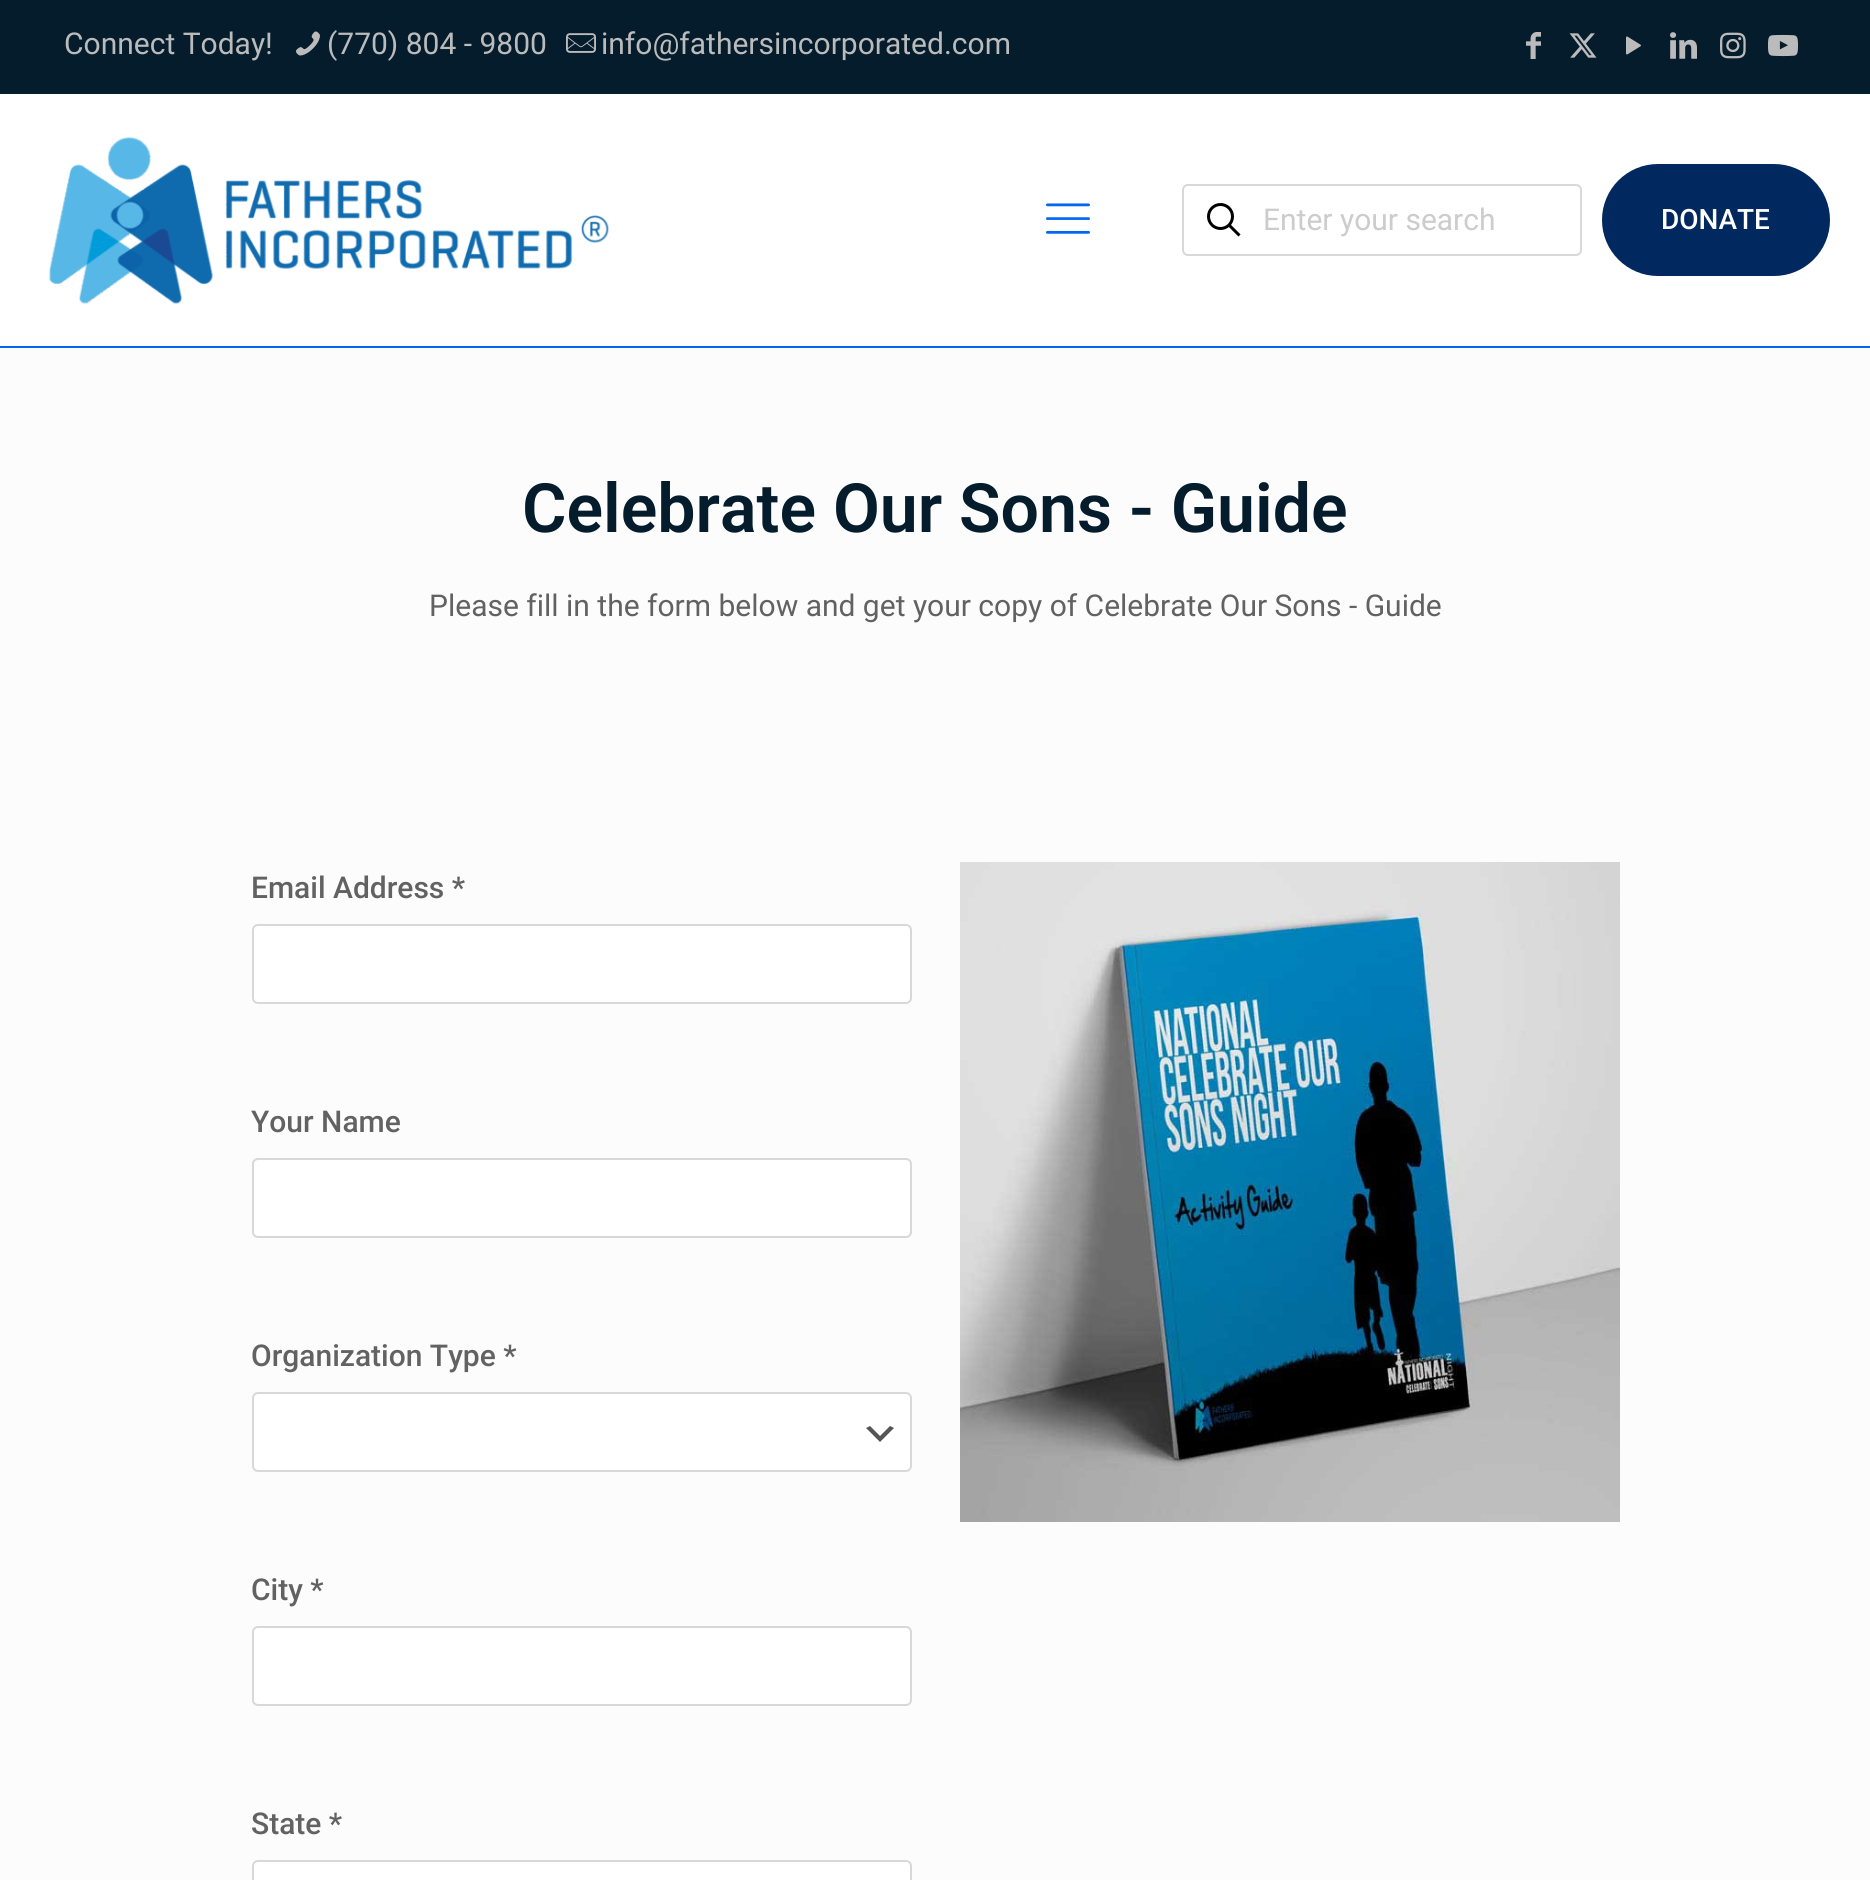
import math
import cairo

surface = cairo.ImageSurface(cairo.Format.RGB24, 1870, 1880)
ctx = cairo.Context(surface)
options = cairo.FontOptions()
options.set_hint_metrics(cairo.HintMetrics.OFF)
options.set_hint_style(cairo.HintStyle.NONE)
ctx.set_font_options(options)
ctx.set_miter_limit(4)


def ink(r, g, b):
    ctx.set_source_rgb(r / 255, g / 255, b / 255)


def write(x, y, s, family, size, color, bold=False, italic=False):
    ctx.select_font_face(family, cairo.FontSlant.ITALIC if italic else cairo.FontSlant.NORMAL, cairo.FontWeight.BOLD if bold else cairo.FontWeight.NORMAL)
    ctx.set_font_size(size)
    ink(*color)
    ctx.move_to(x, y)
    ctx.show_text(s)


def block(x, y, w, h, *color):
    ink(*color)
    ctx.rectangle(x, y, w, h)
    ctx.fill()


def round_path(x, y, w, h, r):
    ctx.new_sub_path()
    for i, (u, v) in enumerate([(x + w - r, y + h - r), (x + r, y + h - r), (x + r, y + r), (x + w - r, y + r)]):
        ctx.arc(u, v, r, i * math.pi / 2, (i + 1) * math.pi / 2)
    ctx.close_path()


def paste(path, x, y, w, h):
    ctx.save()
    ctx.set_source_surface(cairo.ImageSurface.create_from_png(path), x, y)
    ctx.rectangle(x, y, w, h)
    ctx.fill()
    ctx.restore()


s1 = dict(family="Roboto", size=30, color=(187, 187, 187))
s2 = dict(family="Roboto", size=30, color=(204, 204, 204))
s3 = dict(family="Roboto Medium", size=28, color=(255, 255, 255))
s4 = dict(family="Roboto SemiBold", size=68, color=(4, 28, 44))
s5 = dict(family="Roboto", size=30, color=(98, 98, 98))
s6 = dict(family="Roboto Medium", size=30, color=(98, 98, 98))

ink(252, 252, 252)
ctx.paint()
block(0, 0, 1870, 94, 4, 28, 44)
write(64, 54, "Connect Today!", **s1)
paste("pic1.png", 296, 31, 24, 25)
write(327, 54, "(770) 804 - 9800", **s1)
paste("pic2.png", 566, 33, 30, 20)
write(601, 54, "info@fathersincorporated.com", **s1)
paste("pic3.png", 1526, 32, 15, 27)
paste("pic4.png", 1569, 33, 28, 25)
paste("pic5.png", 1626, 36, 15, 19)
paste("pic6.png", 1670, 32, 27, 27)
paste("pic7.png", 1720, 32, 26, 27)
paste("pic8.png", 1768, 34, 30, 23)
block(0, 94, 1870, 252, 255, 255, 255)
block(0, 346, 1870, 2, 2, 102, 238)
paste("pic9.png", 48, 137, 561, 167)
paste("pic10.png", 1046, 203, 44, 31)
round_path(1183, 185, 398, 70, 5)
ink(216, 216, 216)
ctx.stroke()
ctx.arc(1220.5, 216.5, 12, 0, 2 * math.pi)
ink(0, 0, 0)
ctx.set_line_width(3)
ctx.stroke()
ctx.new_path()
ctx.move_to(1229, 225)
ctx.line_to(1239.5, 235.5)
ctx.stroke()
write(1263, 230, "Enter your search", **s2)
ink(1, 40, 95)
round_path(1602, 164, 228, 112, 56)
ctx.fill()
write(1661, 229, "DONATE", **s3)
write(522, 532, "Celebrate Our Sons - Guide", **s4)
write(429, 616, "Please fill in the form below and get your copy of Celebrate Our Sons - Guide", **s5)
write(251, 898, "Email Address *", **s6)
ink(255, 255, 255)
round_path(253, 925, 658, 78, 5)
ctx.fill_preserve()
ink(216, 216, 216)
ctx.set_line_width(2)
ctx.stroke()
write(251, 1132, "Your Name", **s6)
ink(255, 255, 255)
round_path(253, 1159, 658, 78, 5)
ctx.fill_preserve()
ink(216, 216, 216)
ctx.stroke()
write(251, 1366, "Organization Type *", **s6)
ink(255, 255, 255)
round_path(252, 1392, 660, 80, 6)
ctx.fill()
ink(85, 85, 85)
ctx.new_path()
ctx.move_to(870, 1426)
ctx.line_to(880, 1436)
ctx.line_to(890, 1426)
ctx.line_to(894, 1428)
ctx.line_to(880, 1442)
ctx.line_to(866, 1428)
ctx.close_path()
ctx.fill()
round_path(253, 1393, 658, 78, 5)
ink(216, 216, 216)
ctx.stroke()
write(251, 1600, "City *", **s6)
ink(255, 255, 255)
round_path(253, 1627, 658, 78, 5)
ctx.fill_preserve()
ink(216, 216, 216)
ctx.stroke()
write(251, 1834, "State *", **s6)
ink(255, 255, 255)
round_path(253, 1861, 658, 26, 5)
ctx.fill_preserve()
ink(216, 216, 216)
ctx.stroke()
paste("pic11.png", 960, 862, 660, 660)
surface.write_to_png("screenshot.png")
